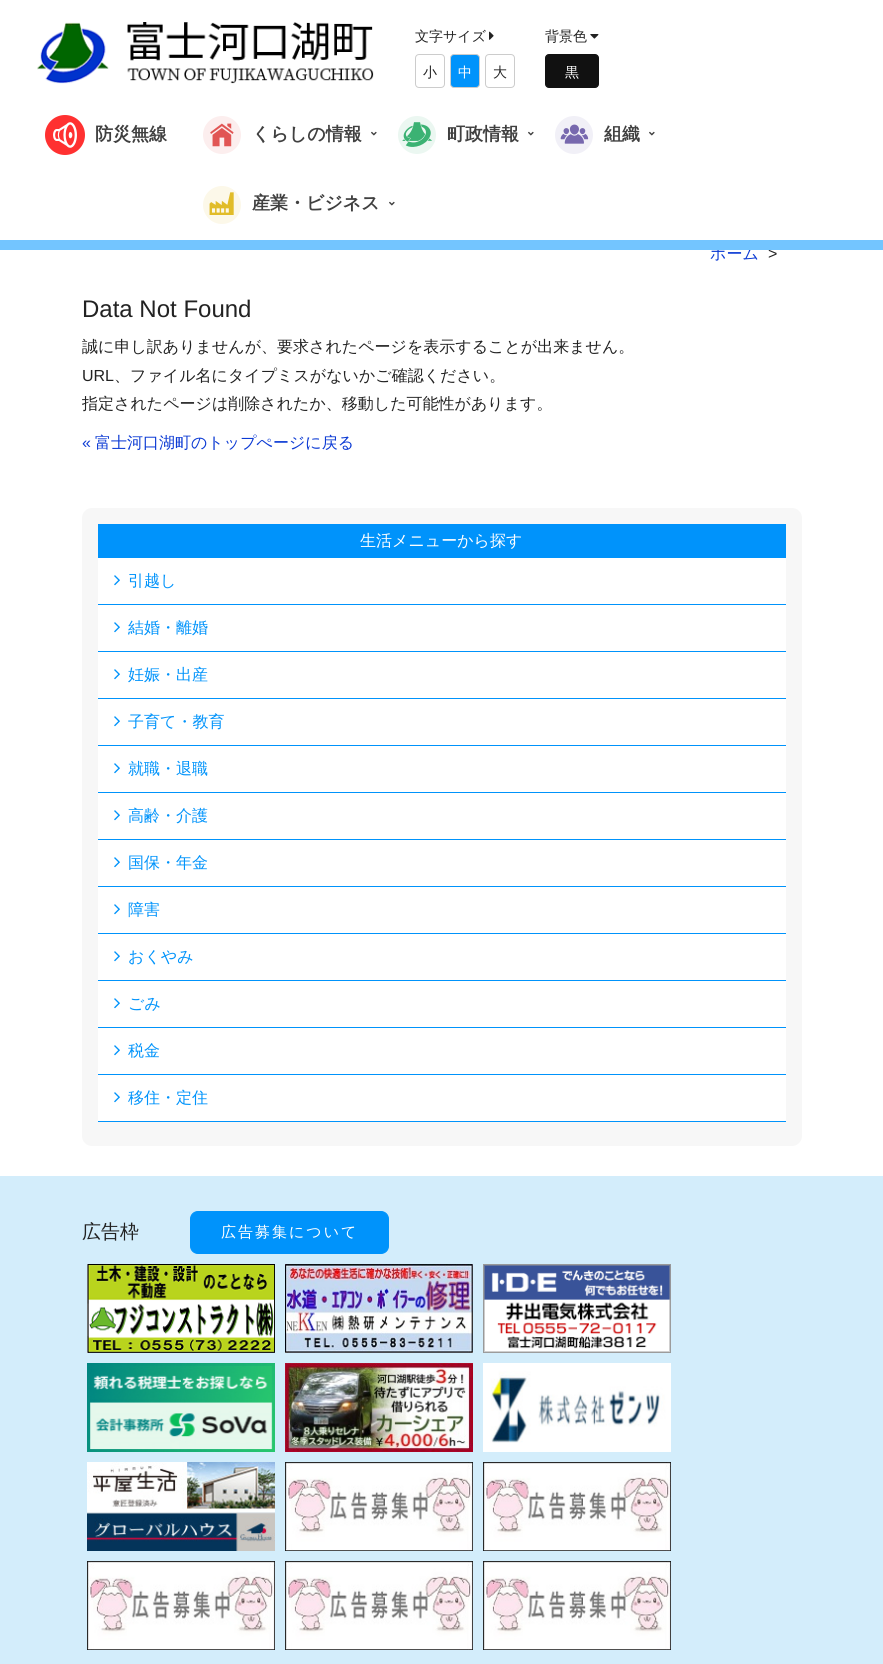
import math
import cairo

surface = cairo.ImageSurface(cairo.Format.RGB24, 883, 1664)
ctx = cairo.Context(surface)
options = cairo.FontOptions()
options.set_hint_metrics(cairo.HintMetrics.OFF)
options.set_hint_style(cairo.HintStyle.NONE)
ctx.set_font_options(options)
ctx.set_miter_limit(4)


def ink(r, g, b):
    ctx.set_source_rgb(r / 255, g / 255, b / 255)


def write(x, y, s, family, size, color, bold=False, italic=False):
    ctx.select_font_face(family, cairo.FontSlant.ITALIC if italic else cairo.FontSlant.NORMAL, cairo.FontWeight.BOLD if bold else cairo.FontWeight.NORMAL)
    ctx.set_font_size(size)
    ink(*color)
    ctx.move_to(x, y)
    ctx.show_text(s)


def write_spaced(x, y, s, letter, word):
    ctx.move_to(x, y)
    for ch in s:
        ctx.show_text(ch)
        ctx.rel_move_to(letter + word * (ch == ' '), 0)


def block(x, y, w, h, *color):
    ink(*color)
    ctx.rectangle(x, y, w, h)
    ctx.fill()


def round_path(x, y, w, h, r):
    ctx.new_sub_path()
    for i, (u, v) in enumerate([(x + w - r, y + h - r), (x + r, y + h - r), (x + r, y + r), (x + w - r, y + r)]):
        ctx.arc(u, v, r, i * math.pi / 2, (i + 1) * math.pi / 2)
    ctx.close_path()


def paste(path, x, y, w, h):
    ctx.save()
    ctx.set_source_surface(cairo.ImageSurface.create_from_png(path), x, y)
    ctx.rectangle(x, y, w, h)
    ctx.fill()
    ctx.restore()


s1 = dict(family="WenQuanYi Zen Hei Medium", size=16, color=(11, 58, 212))
s2 = dict(family="Liberation Sans", size=16, color=(34, 34, 34))
s3 = dict(family="WenQuanYi Zen Hei Medium", size=14, color=(34, 34, 34))
s4 = dict(family="WenQuanYi Zen Hei Medium", size=14, color=(255, 255, 255))
s5 = dict(family="WenQuanYi Zen Hei", size=18, color=(64, 64, 64), bold=True)
s6 = dict(family="Liberation Sans", size=24, color=(34, 34, 34))
s7 = dict(family="WenQuanYi Zen Hei Medium", size=16, color=(34, 34, 34))
s8 = dict(family="Liberation Sans", size=16, color=(11, 58, 212))
s9 = dict(family="WenQuanYi Zen Hei Medium", size=16, color=(255, 255, 255))
s10 = dict(family="WenQuanYi Zen Hei Medium", size=16, color=(0, 147, 251))
s11 = dict(family="WenQuanYi Zen Hei Medium", size=19, color=(34, 34, 34))

ink(255, 255, 255)
ctx.paint()
write(710, 259, "ホーム", **s1)
write(768, 259, ">", **s2)
block(0, 240, 883, 10, 115, 197, 255)
paste("pic1.png", 37, 22, 337, 62)
write(415, 41, "文字サイズ", **s3)
paste("pic2.png", 489, 31, 5, 9)
round_path(415.5, 54.5, 29, 33, 3.5)
ink(204, 204, 204)
ctx.set_line_width(1)
ctx.stroke()
write(423, 77, "小", **s3)
ink(0, 147, 251)
round_path(450.5, 54.5, 29, 33, 3.5)
ctx.fill_preserve()
ink(204, 204, 204)
ctx.stroke()
write(458, 77, "中", **s4)
round_path(485.5, 54.5, 29, 33, 3.5)
ink(204, 204, 204)
ctx.stroke()
write(493, 77, "大", **s3)
write(545, 41, "背景色", **s3)
paste("pic3.png", 590, 34, 9, 5)
ink(17, 17, 17)
round_path(545.5, 54.5, 53, 33, 3.5)
ctx.fill_preserve()
ctx.stroke()
write(565, 77, "黒", **s4)
paste("pic4.png", 45, 115, 40, 40)
write(95, 140, "防災無線", **s5)
paste("pic5.png", 203, 116, 38, 38)
write(252, 140, "くらしの情報", **s5)
paste("pic6.png", 371, 131, 6, 5)
paste("pic7.png", 398, 116, 38, 38)
write(447, 140, "町政情報", **s5)
paste("pic6.png", 528, 131, 6, 5)
paste("pic8.png", 555, 116, 38, 38)
write(604, 140, "組織", **s5)
paste("pic6.png", 649, 131, 6, 5)
paste("pic9.png", 203, 186, 38, 38)
write(252, 209, "産業・ビジネス", **s5)
paste("pic6.png", 389, 201, 6, 5)
write(82, 317, "Data Not Found", **s6)
write(82, 352, "誠に申し訳ありませんが、要求されたページを表示することが出来ません。", **s7)
write(82, 381, "URL", **s2)
write(114, 381, "、ファイル名にタイプミスがないかご確認ください。", **s7)
write(82, 409, "指定されたページは削除されたか、移動した可能性があります。", **s7)
write(82, 448, "«", **s8)
write(95, 448, "富士河口湖町のトップぺージに戻る", **s1)
ink(247, 247, 247)
round_path(82, 508, 720, 638, 10)
ctx.fill()
block(98, 524, 688, 34, 0, 147, 251)
write(360, 546, "生活メニューから探す", **s9)
block(98, 558, 688, 46, 255, 255, 255)
block(98, 604, 688, 1, 0, 147, 251)
paste("pic10.png", 114, 575, 6, 11)
write(128, 586, "引越し", **s10)
block(98, 605, 688, 46, 255, 255, 255)
block(98, 651, 688, 1, 0, 147, 251)
paste("pic10.png", 114, 622, 6, 11)
write(128, 633, "結婚・離婚", **s10)
block(98, 652, 688, 46, 255, 255, 255)
block(98, 698, 688, 1, 0, 147, 251)
paste("pic10.png", 114, 669, 6, 11)
write(128, 680, "妊娠・出産", **s10)
block(98, 699, 688, 46, 255, 255, 255)
block(98, 745, 688, 1, 0, 147, 251)
paste("pic10.png", 114, 716, 6, 11)
write(128, 727, "子育て・教育", **s10)
block(98, 746, 688, 46, 255, 255, 255)
block(98, 792, 688, 1, 0, 147, 251)
paste("pic10.png", 114, 763, 6, 11)
write(128, 774, "就職・退職", **s10)
block(98, 793, 688, 46, 255, 255, 255)
block(98, 839, 688, 1, 0, 147, 251)
paste("pic10.png", 114, 810, 6, 11)
write(128, 821, "高齢・介護", **s10)
block(98, 840, 688, 46, 255, 255, 255)
block(98, 886, 688, 1, 0, 147, 251)
paste("pic10.png", 114, 857, 6, 11)
write(128, 868, "国保・年金", **s10)
block(98, 887, 688, 46, 255, 255, 255)
block(98, 933, 688, 1, 0, 147, 251)
paste("pic10.png", 114, 904, 6, 11)
write(128, 915, "障害", **s10)
block(98, 934, 688, 46, 255, 255, 255)
block(98, 980, 688, 1, 0, 147, 251)
paste("pic10.png", 114, 951, 6, 11)
write(128, 962, "おくやみ", **s10)
block(98, 981, 688, 46, 255, 255, 255)
block(98, 1027, 688, 1, 0, 147, 251)
paste("pic10.png", 114, 998, 6, 11)
write(128, 1009, "ごみ", **s10)
block(98, 1028, 688, 46, 255, 255, 255)
block(98, 1074, 688, 1, 0, 147, 251)
paste("pic10.png", 114, 1045, 6, 11)
write(128, 1056, "税金", **s10)
block(98, 1075, 688, 46, 255, 255, 255)
block(98, 1121, 688, 1, 0, 147, 251)
paste("pic10.png", 114, 1092, 6, 11)
write(128, 1103, "移住・定住", **s10)
block(0, 1176, 883, 488, 211, 237, 251)
write(82, 1238, "広告枠", **s11)
ink(0, 147, 251)
round_path(190.5, 1211.5, 198, 42, 7.5)
ctx.fill_preserve()
ctx.stroke()
ctx.set_font_size(15)
ink(255, 255, 255)
write_spaced(221, 1237, "広告募集について", 2, 0)
paste("pic11.png", 87, 1264, 188, 89)
paste("pic12.png", 285, 1264, 188, 89)
paste("pic13.png", 483, 1264, 188, 89)
paste("pic14.png", 87, 1363, 188, 89)
paste("pic15.png", 285, 1363, 188, 89)
paste("pic16.png", 483, 1363, 188, 89)
paste("pic17.png", 87, 1462, 188, 89)
paste("pic18.png", 285, 1462, 188, 89)
paste("pic19.png", 483, 1462, 188, 89)
paste("pic18.png", 87, 1561, 188, 89)
paste("pic18.png", 285, 1561, 188, 89)
paste("pic19.png", 483, 1561, 188, 89)
surface.write_to_png("screenshot.png")
